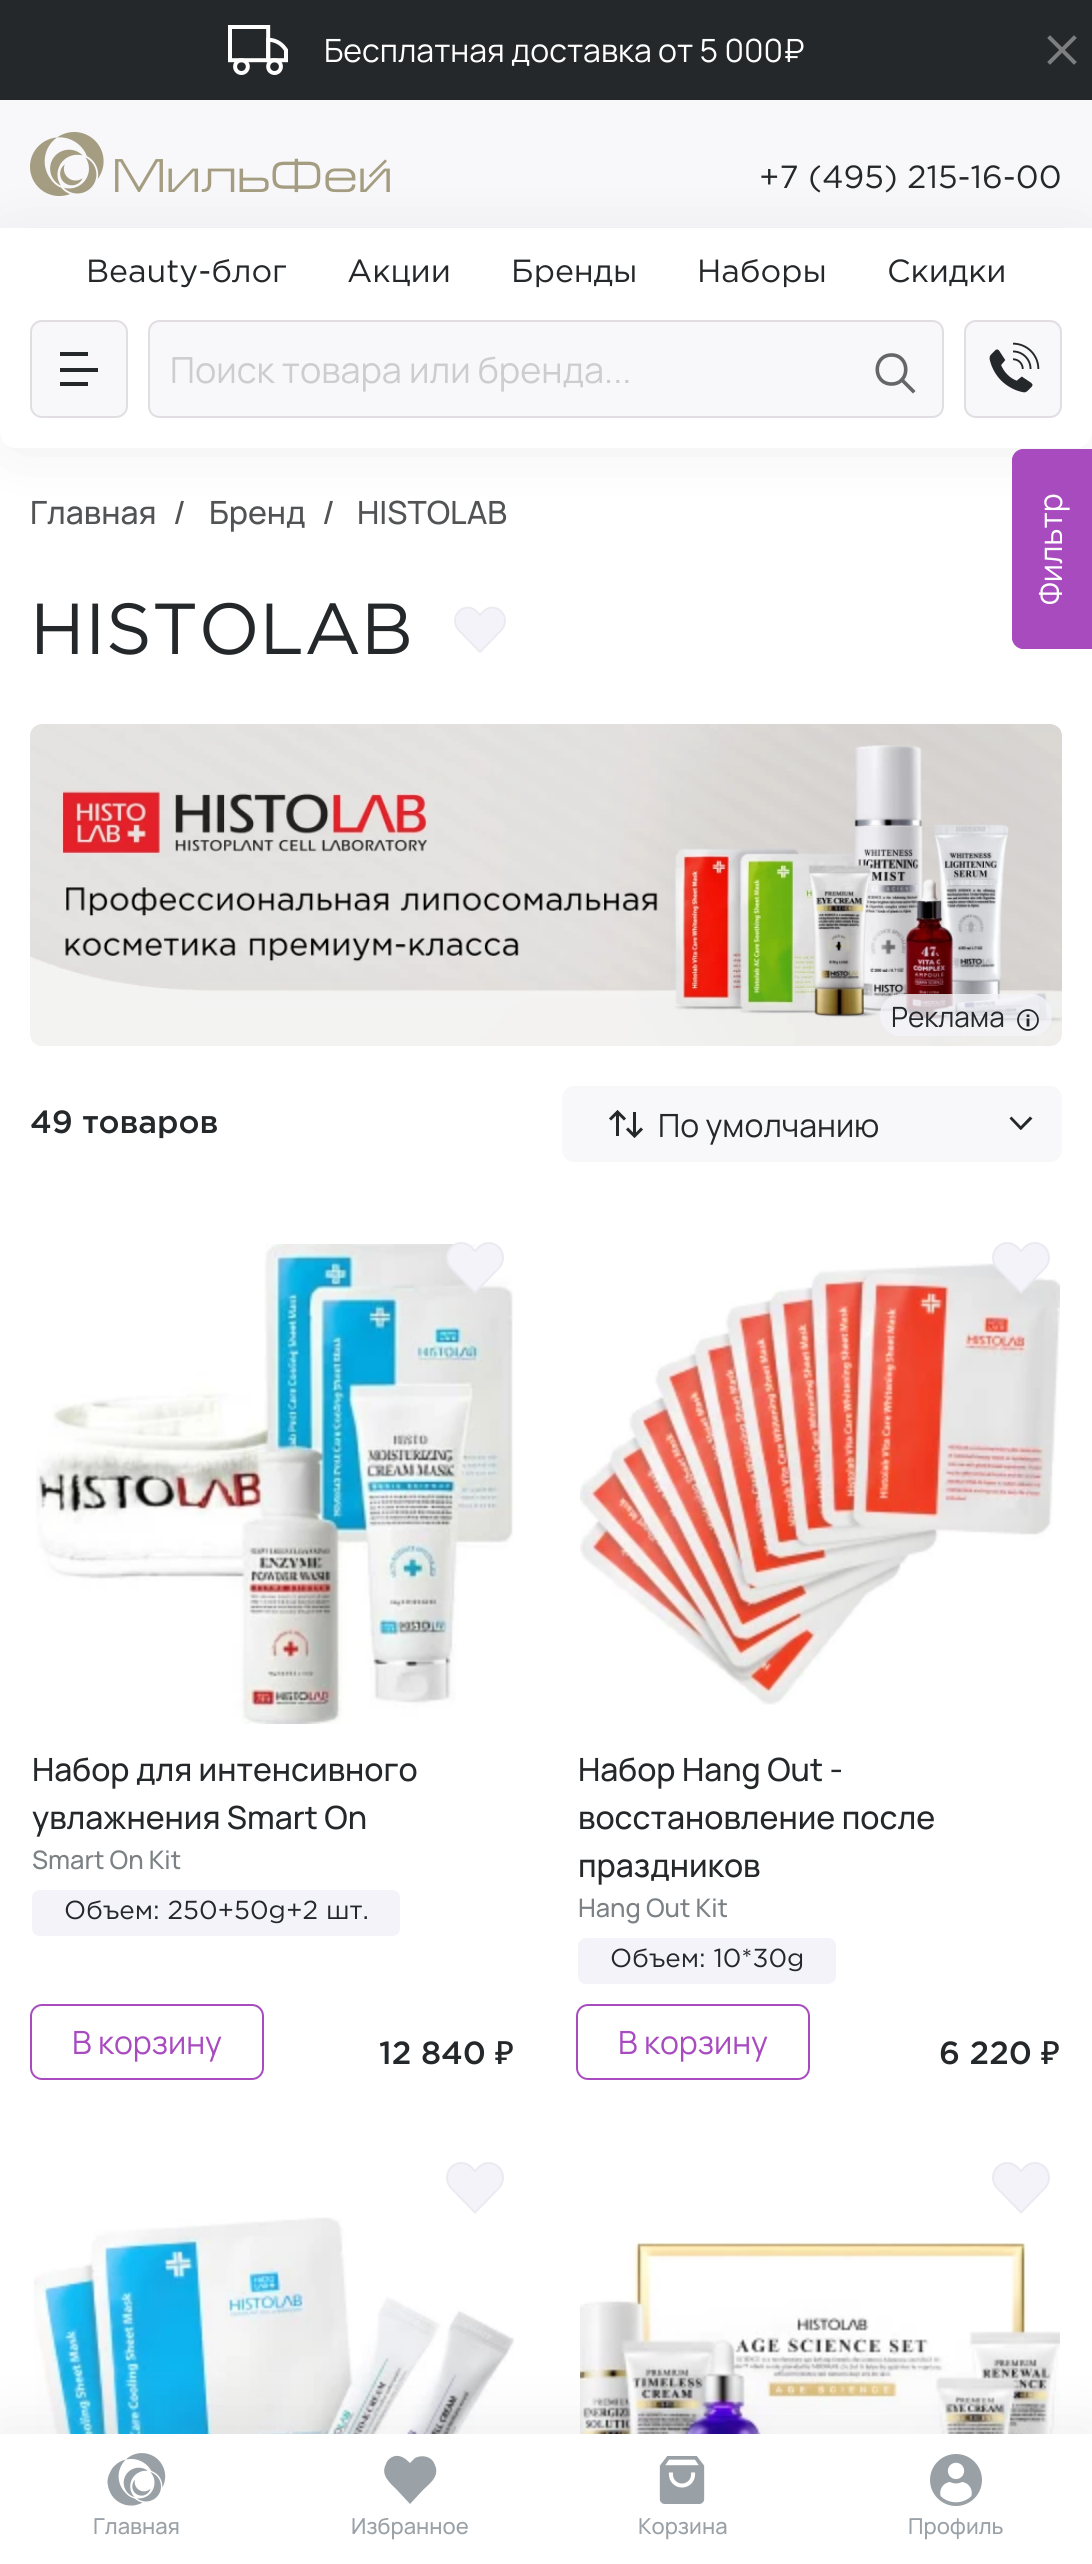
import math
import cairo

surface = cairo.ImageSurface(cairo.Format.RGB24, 1092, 2564)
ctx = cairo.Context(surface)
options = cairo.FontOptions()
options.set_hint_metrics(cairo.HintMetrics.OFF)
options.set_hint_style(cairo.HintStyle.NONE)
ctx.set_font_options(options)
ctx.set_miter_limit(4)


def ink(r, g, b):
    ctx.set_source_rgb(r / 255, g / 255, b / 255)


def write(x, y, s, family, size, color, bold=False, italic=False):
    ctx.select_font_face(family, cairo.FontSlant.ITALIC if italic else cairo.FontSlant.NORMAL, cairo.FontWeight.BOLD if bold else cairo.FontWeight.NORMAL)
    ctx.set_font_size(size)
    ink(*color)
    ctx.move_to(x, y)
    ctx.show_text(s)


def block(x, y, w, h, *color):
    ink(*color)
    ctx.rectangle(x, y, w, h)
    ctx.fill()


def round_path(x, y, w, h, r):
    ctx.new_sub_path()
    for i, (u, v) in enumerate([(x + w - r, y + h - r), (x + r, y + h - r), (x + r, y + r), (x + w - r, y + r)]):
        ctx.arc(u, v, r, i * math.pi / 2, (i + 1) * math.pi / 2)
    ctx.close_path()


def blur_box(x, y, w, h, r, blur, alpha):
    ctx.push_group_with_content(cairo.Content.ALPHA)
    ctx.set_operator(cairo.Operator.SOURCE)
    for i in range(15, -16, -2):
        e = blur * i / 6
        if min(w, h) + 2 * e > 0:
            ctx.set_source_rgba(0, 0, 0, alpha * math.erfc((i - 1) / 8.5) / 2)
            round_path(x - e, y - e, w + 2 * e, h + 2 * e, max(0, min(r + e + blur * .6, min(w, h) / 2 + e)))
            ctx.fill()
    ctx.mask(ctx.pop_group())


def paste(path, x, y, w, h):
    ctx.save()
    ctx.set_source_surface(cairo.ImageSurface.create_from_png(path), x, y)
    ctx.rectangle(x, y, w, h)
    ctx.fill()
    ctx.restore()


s1 = dict(family="Manrope", size=32, color=(255, 255, 255))
s2 = dict(family="Gotham", size=32, color=(37, 40, 42))
s3 = dict(family="Manrope", size=36, color=(205, 205, 207))
s4 = dict(family="Manrope Medium", size=32, color=(81, 83, 85))
s5 = dict(family="Gotham", size=72, color=(37, 40, 42))
s6 = dict(family="Manrope", size=28, color=(37, 40, 42))
s7 = dict(family="Gotham Medium", size=32, color=(37, 40, 42))
s8 = dict(family="Manrope", size=32, color=(37, 40, 42))
s9 = dict(family="Manrope Medium", size=32, color=(37, 40, 42))
s10 = dict(family="Manrope Medium", size=25.5, color=(123, 129, 132))
s11 = dict(family="Gotham", size=26, color=(37, 40, 42))
s12 = dict(family="Manrope", size=32, color=(168, 75, 191))
s13 = dict(family="Noto Sans Medium", size=32, color=(37, 40, 42))
s14 = dict(family="Manrope Medium", size=22, color=(154, 161, 167))

ink(248, 248, 250)
ctx.paint()
block(0, 0, 1092, 100, 37, 40, 42)
paste("pic1.png", 228, 25, 60, 50)
write(324, 62, "Бесплатная доставка от 5 000₽", **s1)
ctx.new_path()
ctx.move_to(1074, 38)
ctx.line_to(1050, 62)
ctx.move_to(1050, 38)
ctx.line_to(1074, 62)
ink(124, 126, 127)
ctx.set_line_width(4)
ctx.set_line_cap(cairo.LineCap.SQUARE)
ctx.set_line_join(cairo.LineJoin.ROUND)
ctx.stroke()
paste("pic2.png", 30, 132, 360, 64)
write(759, 188, "+7 (495) 215-16-00", **s2)
block(0, 432, 1092, 2002, 255, 255, 255)
ink(61, 63, 74)
blur_box(0, 232, 1092, 220, 16, 30, 0.08)
ink(255, 255, 255)
ctx.new_path()
ctx.move_to(0, 228)
ctx.line_to(1092, 228)
ctx.line_to(1092, 432)
ctx.curve_to(1092, 441, 1085, 448, 1076, 448)
ctx.line_to(16, 448)
ctx.curve_to(7, 448, 0, 441, 0, 432)
ctx.close_path()
ctx.fill()
write(86, 282, "Beauty-блог", **s2)
write(347, 282, "Акции", **s2)
write(511, 282, "Бренды", **s2)
write(697, 282, "Наборы", **s2)
write(887, 282, "Скидки", **s2)
ink(248, 248, 250)
round_path(31, 321, 96, 96, 11)
ctx.fill_preserve()
ink(225, 221, 227)
ctx.set_line_width(2)
ctx.set_line_cap(cairo.LineCap.BUTT)
ctx.set_line_join(cairo.LineJoin.MITER)
ctx.stroke()
block(60, 352, 28, 4, 37, 40, 42)
block(60, 368, 38, 4, 37, 40, 42)
block(60, 382, 28, 4, 37, 40, 42)
ink(248, 248, 250)
ctx.new_path()
ctx.move_to(160, 320)
ctx.line_to(850, 320)
ctx.line_to(850, 418)
ctx.line_to(160, 418)
ctx.curve_to(153.5, 418, 148, 412.5, 148, 406)
ctx.line_to(148, 332)
ctx.curve_to(148, 325.5, 153.5, 320, 160, 320)
ctx.close_path()
ctx.fill()
ink(225, 221, 227)
ctx.set_fill_rule(cairo.FillRule.EVEN_ODD)
ctx.new_path()
ctx.move_to(160, 320)
ctx.line_to(850, 320)
ctx.line_to(850, 418)
ctx.line_to(160, 418)
ctx.curve_to(153, 418, 148, 413, 148, 406)
ctx.line_to(148, 332)
ctx.curve_to(148, 325, 153, 320, 160, 320)
ctx.close_path()
ctx.move_to(160, 322)
ctx.line_to(850, 322)
ctx.line_to(850, 416)
ctx.line_to(160, 416)
ctx.curve_to(154, 416, 150, 412, 150, 406)
ctx.line_to(150, 332)
ctx.curve_to(150, 326, 154, 322, 160, 322)
ctx.close_path()
ctx.fill()
write(170, 383, "Поиск товара или бренда...", **s3)
ink(248, 248, 250)
ctx.new_path()
ctx.move_to(848, 320)
ctx.line_to(932, 320)
ctx.curve_to(938.5, 320, 944, 325.5, 944, 332)
ctx.line_to(944, 406)
ctx.curve_to(944, 412.5, 938.5, 418, 932, 418)
ctx.line_to(848, 418)
ctx.close_path()
ctx.fill()
ink(225, 221, 227)
ctx.new_path()
ctx.move_to(848, 320)
ctx.line_to(932, 320)
ctx.curve_to(939, 320, 944, 325, 944, 332)
ctx.line_to(944, 406)
ctx.curve_to(944, 413, 939, 418, 932, 418)
ctx.line_to(848, 418)
ctx.close_path()
ctx.move_to(848, 322)
ctx.line_to(932, 322)
ctx.curve_to(938, 322, 942, 326, 942, 332)
ctx.line_to(942, 406)
ctx.curve_to(942, 412, 938, 416, 932, 416)
ctx.line_to(848, 416)
ctx.close_path()
ctx.fill()
ctx.new_path()
ctx.move_to(891.5, 384)
ctx.curve_to(910.5, 384, 910.5, 355, 891.5, 355)
ctx.curve_to(872.5, 355, 872.5, 384, 891.5, 384)
ctx.close_path()
ink(100, 102, 104)
ctx.set_line_width(3.6)
ctx.set_line_cap(cairo.LineCap.ROUND)
ctx.set_line_join(cairo.LineJoin.ROUND)
ctx.stroke()
ctx.new_path()
ctx.move_to(913, 391)
ctx.line_to(902, 380)
ctx.set_line_cap(cairo.LineCap.SQUARE)
ctx.stroke()
ink(248, 248, 250)
round_path(965, 321, 96, 96, 11)
ctx.fill_preserve()
ink(225, 221, 227)
ctx.set_line_width(2)
ctx.set_line_cap(cairo.LineCap.BUTT)
ctx.set_line_join(cairo.LineJoin.MITER)
ctx.stroke()
paste("pic3.png", 989, 342, 51, 51)
ink(168, 75, 191)
ctx.set_fill_rule(cairo.FillRule.WINDING)
ctx.new_path()
ctx.move_to(1012, 637)
ctx.line_to(1012, 461)
ctx.curve_to(1012, 454, 1017, 449, 1024, 449)
ctx.line_to(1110, 449)
ctx.line_to(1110, 649)
ctx.line_to(1024, 649)
ctx.curve_to(1017, 649, 1012, 644, 1012, 637)
ctx.close_path()
ctx.fill()
ctx.new_path()
ctx.move_to(1013, 637)
ctx.line_to(1013, 461)
ctx.curve_to(1013, 455, 1018, 450, 1024, 450)
ctx.line_to(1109, 450)
ctx.line_to(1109, 648)
ctx.line_to(1024, 648)
ctx.curve_to(1018, 648, 1013, 643, 1013, 637)
ctx.close_path()
ctx.stroke()
ctx.save()
ctx.translate(1062, 605)
ctx.rotate(-90 * math.pi / 180)
write(0, 0, "Фильтр", **s1)
ctx.restore()
write(30, 524, "Главная", **s4)
write(173, 524, "/", **s4)
write(209, 524, "Бренд", **s4)
write(322, 524, "/", **s4)
write(357, 524, "HISTOLAB", **s4)
write(30, 654, "HISTOLAB", **s5)
paste("pic4.png", 454, 606, 52, 47)
paste("pic5.png", 30, 724, 1032, 322)
ctx.set_source_rgba(0.953, 0.953, 0.976, 0.8)
round_path(880, 994, 172, 42, 21)
ctx.fill()
write(891, 1027, "Реклама", **s6)
ctx.new_path()
ctx.arc(1028, 1020, 10, 0, 2 * math.pi)
ctx.set_line_width(1.8)
ctx.stroke()
ctx.new_path()
ctx.move_to(1028, 1018.5)
ctx.line_to(1028, 1026.5)
ctx.move_to(1028, 1014.5)
ctx.line_to(1028, 1017)
ctx.set_line_width(2.8)
ctx.stroke()
write(30, 1133, "49 товаров", **s7)
ink(248, 248, 250)
round_path(562, 1086, 500, 76, 12)
ctx.fill()
block(633, 1112, 3, 24, 37, 40, 42)
ctx.new_path()
ctx.move_to(642, 1128.5)
ctx.line_to(634.5, 1136)
ctx.line_to(627, 1128.5)
ctx.set_line_width(3)
ctx.stroke()
block(616, 1112, 3, 24, 37, 40, 42)
ctx.new_path()
ctx.move_to(610, 1119.5)
ctx.line_to(617.5, 1112)
ctx.line_to(625, 1119.5)
ctx.stroke()
write(658, 1137, "По умолчанию", **s8)
ctx.new_path()
ctx.move_to(1011.5, 1116.5)
ctx.line_to(1022.5, 1128)
ctx.line_to(1020.5, 1130)
ctx.line_to(1009.5, 1118.5)
ctx.close_path()
ctx.fill()
ctx.new_path()
ctx.move_to(1019, 1128)
ctx.line_to(1030, 1116.5)
ctx.line_to(1032.5, 1118.5)
ctx.line_to(1021, 1130)
ctx.close_path()
ctx.fill()
paste("pic7.png", 36, 1244, 478, 480)
paste("pic6.png", 446, 1242, 58, 52)
write(32, 1781, "Набор для интенсивного", **s9)
write(32, 1829, "увлажнения Smart On", **s9)
write(32, 1869, "Smart On Kit", **s10)
ink(243, 243, 249)
round_path(32, 1890, 368, 46, 8)
ctx.fill()
write(64, 1919, "Объем: 250+50g+2 шт.", **s11)
round_path(31, 2005, 232, 74, 11)
ink(168, 75, 191)
ctx.set_line_width(2)
ctx.stroke()
write(72, 2054, "В корзину", **s12)
write(379, 2064, "12 840", **s7)
write(495, 2064, "₽", **s13)
paste("pic9.png", 580, 1263, 480, 442)
paste("pic8.png", 992, 1242, 58, 52)
write(578, 1781, "Набор Hang Out -", **s9)
write(578, 1829, "восстановление после", **s9)
write(578, 1877, "праздников", **s9)
write(578, 1917, "Hang Out Kit", **s10)
ink(243, 243, 249)
round_path(578, 1938, 258, 46, 8)
ctx.fill()
write(610, 1967, "Объем: 10*30g", **s11)
round_path(577, 2005, 232, 74, 11)
ink(168, 75, 191)
ctx.stroke()
write(618, 2054, "В корзину", **s12)
write(939, 2064, "6 220", **s7)
write(1041, 2064, "₽", **s13)
paste("pic10.png", 446, 2162, 58, 52)
paste("pic11.png", 34, 2217, 480, 217)
paste("pic10.png", 992, 2162, 58, 52)
paste("pic12.png", 580, 2242, 480, 192)
ink(61, 63, 74)
blur_box(0, 2430, 1092, 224, 0, 30, 0.1)
block(0, 2434, 1092, 130, 255, 255, 255)
paste("pic13.png", 107, 2453, 59, 53)
write(93, 2534, "Главная", **s14)
ctx.new_path()
ctx.move_to(432, 2460)
ctx.curve_to(428, 2456, 421, 2455, 415, 2458)
ctx.line_to(410, 2463)
ctx.curve_to(406, 2459, 401, 2455, 395, 2456)
ctx.curve_to(391, 2457, 387, 2460, 386, 2464)
ctx.curve_to(380, 2475, 390, 2483, 397, 2490)
ctx.line_to(410, 2504)
ctx.line_to(423, 2490)
ctx.curve_to(429, 2484, 438, 2478, 436, 2468)
ctx.curve_to(435, 2465, 434, 2462, 432, 2460)
ctx.close_path()
ctx.fill()
write(351, 2534, "Избранное", **s14)
paste("pic14.png", 659, 2456, 46, 48)
write(638, 2534, "Корзина", **s14)
paste("pic15.png", 930, 2454, 52, 52)
write(908, 2534, "Профиль", **s14)
surface.write_to_png("screenshot.png")
